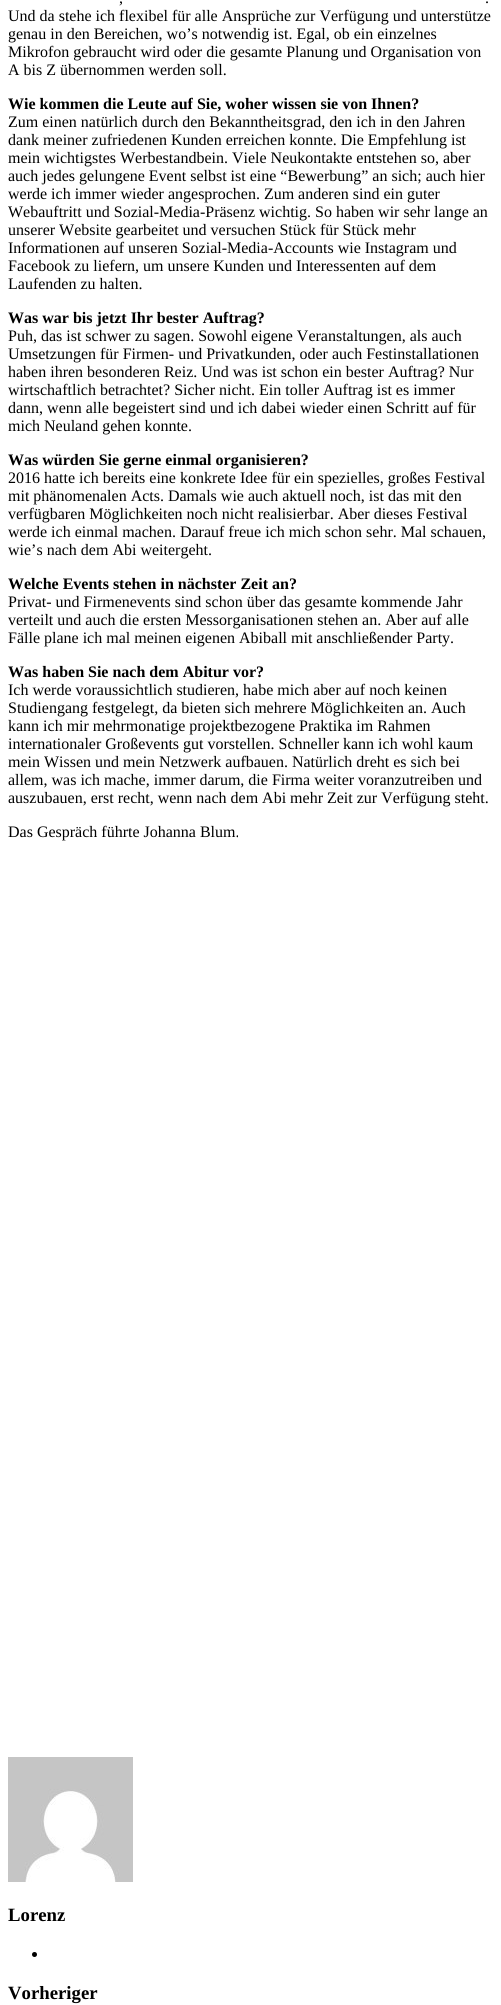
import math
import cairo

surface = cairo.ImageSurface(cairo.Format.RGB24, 501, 2005)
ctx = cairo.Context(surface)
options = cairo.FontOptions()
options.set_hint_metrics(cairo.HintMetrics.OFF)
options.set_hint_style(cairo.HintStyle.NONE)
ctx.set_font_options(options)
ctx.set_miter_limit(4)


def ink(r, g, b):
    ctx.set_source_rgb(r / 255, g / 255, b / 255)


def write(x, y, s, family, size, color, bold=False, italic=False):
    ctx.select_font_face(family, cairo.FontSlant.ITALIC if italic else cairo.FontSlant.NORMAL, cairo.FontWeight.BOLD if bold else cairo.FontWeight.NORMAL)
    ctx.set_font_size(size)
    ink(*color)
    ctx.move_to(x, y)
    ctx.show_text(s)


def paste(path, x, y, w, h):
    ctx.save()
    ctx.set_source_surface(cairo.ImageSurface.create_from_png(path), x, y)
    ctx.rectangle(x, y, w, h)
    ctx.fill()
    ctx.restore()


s1 = dict(family="Liberation Serif", size=16, color=(0, 0, 0))
s2 = dict(family="Liberation Serif", size=16, color=(0, 0, 0), bold=True)
s3 = dict(family="Liberation Serif", size=18.75, color=(0, 0, 0), bold=True)

ink(255, 255, 255)
ctx.paint()
write(119, 3, ",", **s1)
write(485, 3, ".", **s1)
write(8, 21, "Und da stehe ich flexibel für alle Ansprüche zur Verfügung und unterstütze", **s1)
write(8, 39, "genau in den Bereichen, wo’s notwendig ist. Egal, ob ein einzelnes", **s1)
write(8, 57, "Mikrofon gebraucht wird oder die gesamte Planung und Organisation von", **s1)
write(8, 75, "A bis Z übernommen werden soll.", **s1)
write(8, 109, "Wie kommen die Leute auf Sie, woher wissen sie von Ihnen?", **s2)
write(8, 127, "Zum einen natürlich durch den Bekanntheitsgrad, den ich in den Jahren", **s1)
write(8, 145, "dank meiner zufriedenen Kunden erreichen konnte. Die Empfehlung ist", **s1)
write(8, 163, "mein wichtigstes Werbestandbein. Viele Neukontakte entstehen so, aber", **s1)
write(8, 181, "auch jedes gelungene Event selbst ist eine “Bewerbung” an sich; auch hier", **s1)
write(8, 199, "werde ich immer wieder angesprochen. Zum anderen sind ein guter", **s1)
write(8, 217, "Webauftritt und Sozial-Media-Präsenz wichtig. So haben wir sehr lange an", **s1)
write(8, 235, "unserer Website gearbeitet und versuchen Stück für Stück mehr", **s1)
write(8, 253, "Informationen auf unseren Sozial-Media-Accounts wie Instagram und", **s1)
write(8, 271, "Facebook zu liefern, um unsere Kunden und Interessenten auf dem", **s1)
write(8, 289, "Laufenden zu halten.", **s1)
write(8, 323, "Was war bis jetzt Ihr bester Auftrag?", **s2)
write(8, 341, "Puh, das ist schwer zu sagen. Sowohl eigene Veranstaltungen, als auch", **s1)
write(8, 359, "Umsetzungen für Firmen- und Privatkunden, oder auch Festinstallationen", **s1)
write(8, 377, "haben ihren besonderen Reiz. Und was ist schon ein bester Auftrag? Nur", **s1)
write(8, 395, "wirtschaftlich betrachtet? Sicher nicht. Ein toller Auftrag ist es immer", **s1)
write(8, 413, "dann, wenn alle begeistert sind und ich dabei wieder einen Schritt auf für", **s1)
write(8, 431, "mich Neuland gehen konnte.", **s1)
write(8, 465, "Was würden Sie gerne einmal organisieren?", **s2)
write(8, 483, "2016 hatte ich bereits eine konkrete Idee für ein spezielles, großes Festival", **s1)
write(8, 501, "mit phänomenalen Acts. Damals wie auch aktuell noch, ist das mit den", **s1)
write(8, 519, "verfügbaren Möglichkeiten noch nicht realisierbar. Aber dieses Festival", **s1)
write(8, 537, "werde ich einmal machen. Darauf freue ich mich schon sehr. Mal schauen,", **s1)
write(8, 555, "wie’s nach dem Abi weitergeht.", **s1)
write(8, 589, "Welche Events stehen in nächster Zeit an?", **s2)
write(8, 607, "Privat- und Firmenevents sind schon über das gesamte kommende Jahr", **s1)
write(8, 625, "verteilt und auch die ersten Messorganisationen stehen an. Aber auf alle", **s1)
write(8, 643, "Fälle plane ich mal meinen eigenen Abiball mit anschließender Party.", **s1)
write(8, 677, "Was haben Sie nach dem Abitur vor?", **s2)
write(8, 695, "Ich werde voraussichtlich studieren, habe mich aber auf noch keinen", **s1)
write(8, 713, "Studiengang festgelegt, da bieten sich mehrere Möglichkeiten an. Auch", **s1)
write(8, 731, "kann ich mir mehrmonatige projektbezogene Praktika im Rahmen", **s1)
write(8, 749, "internationaler Großevents gut vorstellen. Schneller kann ich wohl kaum", **s1)
write(8, 767, "mein Wissen und mein Netzwerk aufbauen. Natürlich dreht es sich bei", **s1)
write(8, 785, "allem, was ich mache, immer darum, die Firma weiter voranzutreiben und", **s1)
write(8, 803, "auszubauen, erst recht, wenn nach dem Abi mehr Zeit zur Verfügung steht.", **s1)
write(8, 837, "Das Gespräch führte Johanna Blum.", **s1)
paste("pic1.png", 8, 1757, 125, 125)
write(8, 1921, "Lorenz", **s3)
ctx.new_path()
ctx.arc(34.5, 1954.5, 2.5, 0, 2 * math.pi)
ctx.fill()
write(8, 1999, "Vorheriger", **s3)
surface.write_to_png("screenshot.png")
